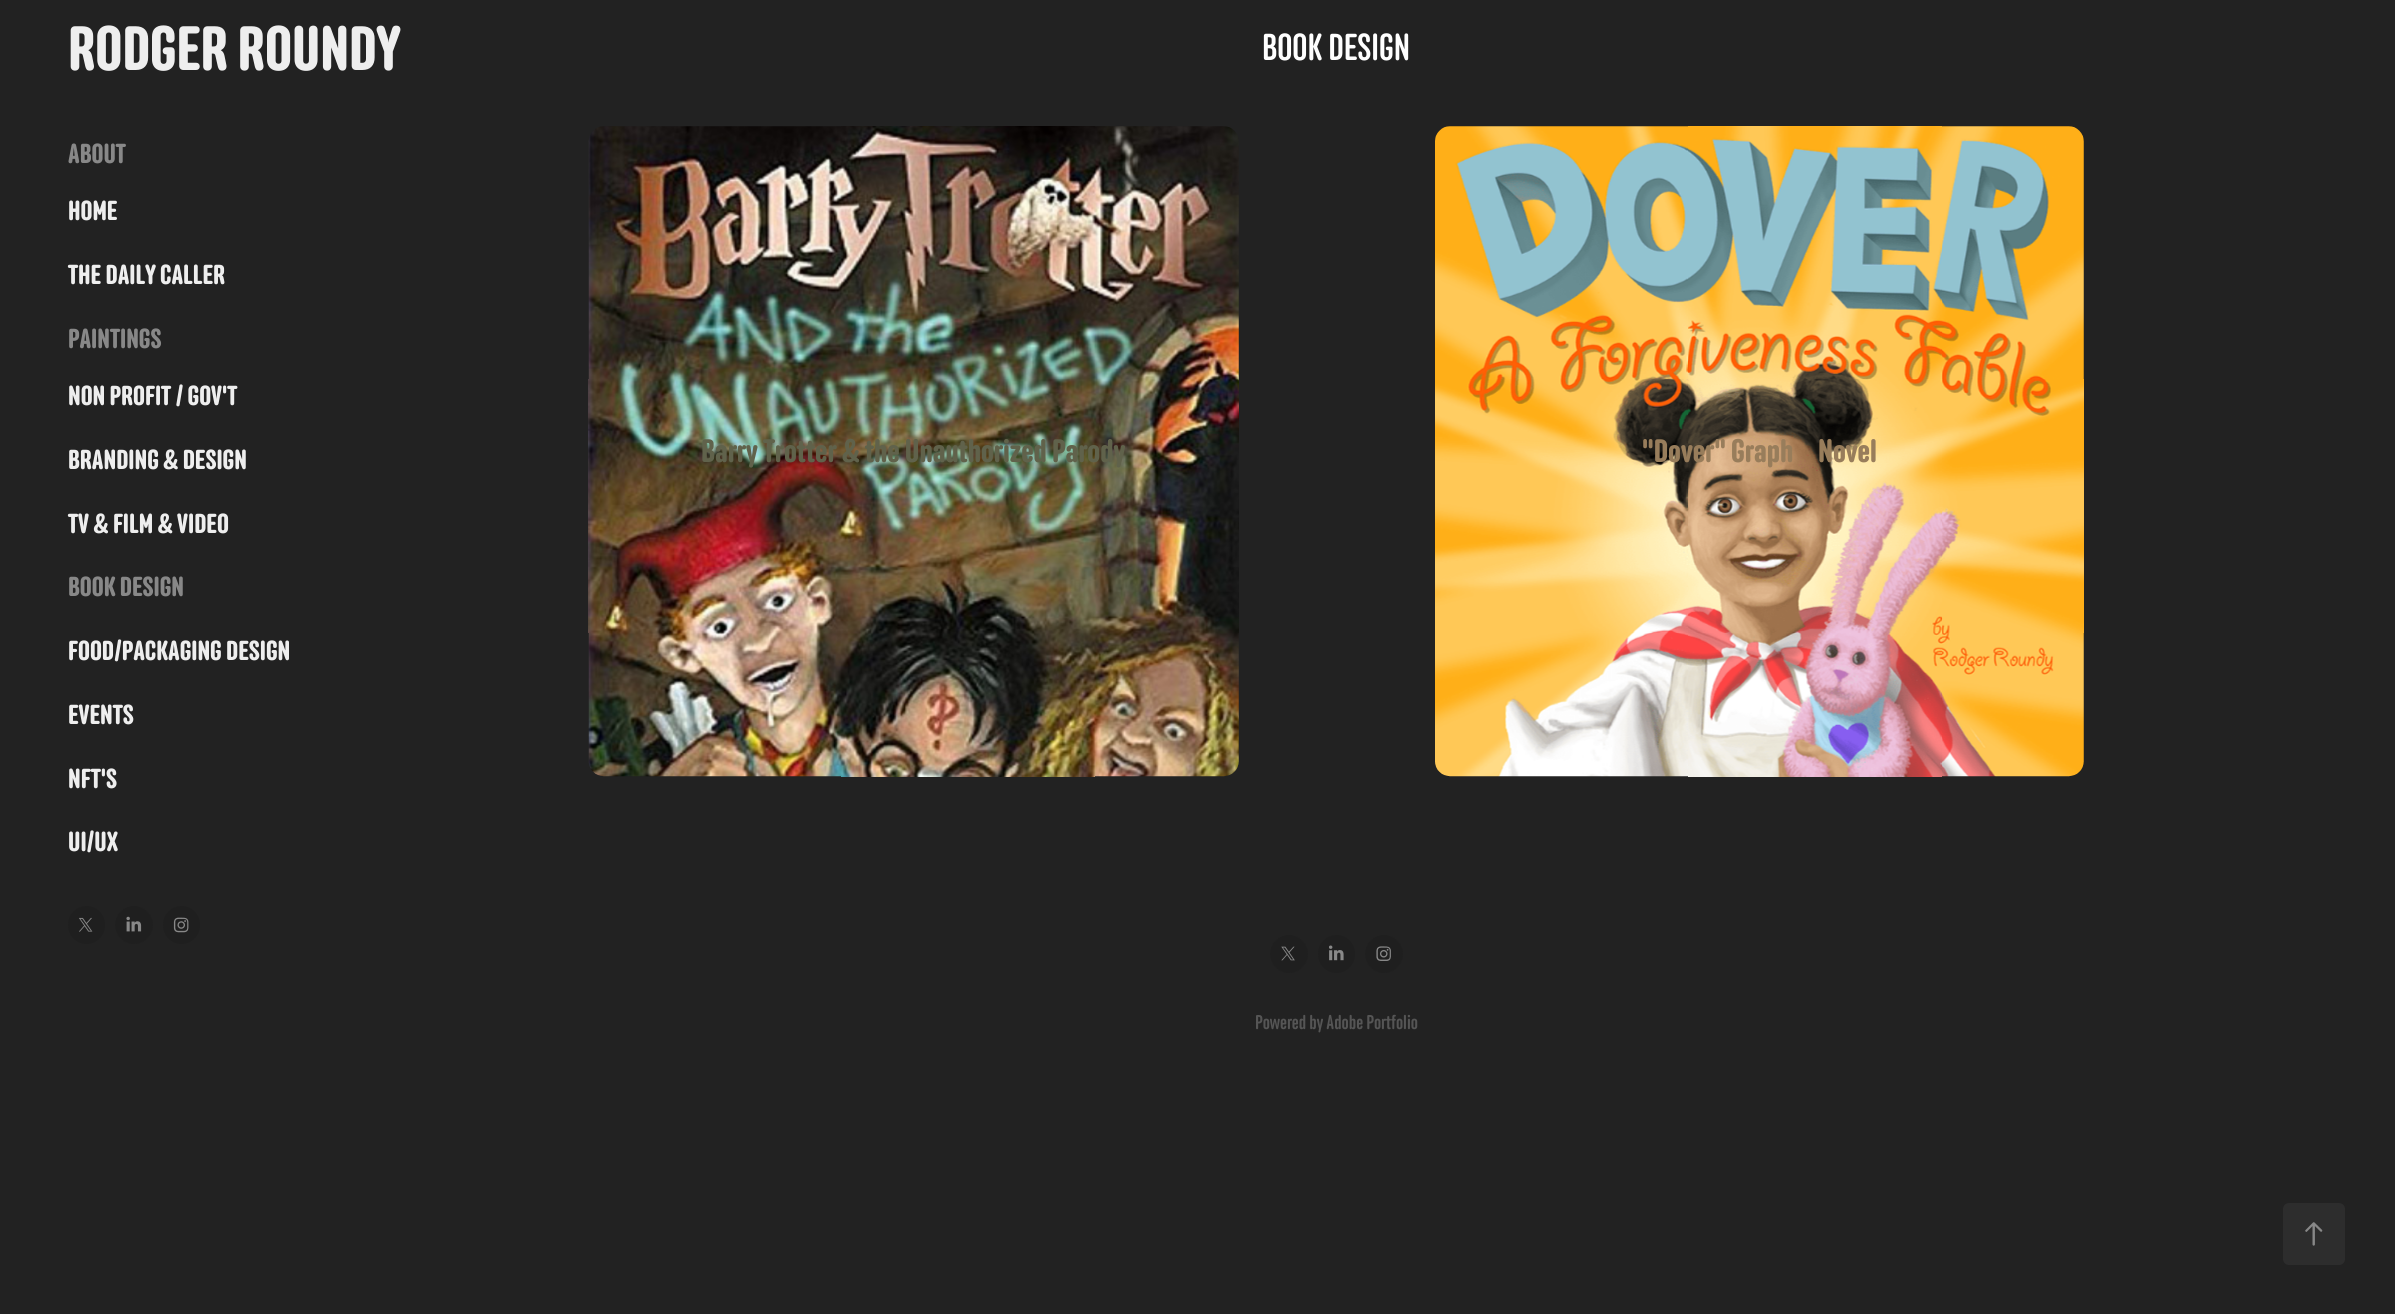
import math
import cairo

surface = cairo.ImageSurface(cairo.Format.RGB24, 2395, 1314)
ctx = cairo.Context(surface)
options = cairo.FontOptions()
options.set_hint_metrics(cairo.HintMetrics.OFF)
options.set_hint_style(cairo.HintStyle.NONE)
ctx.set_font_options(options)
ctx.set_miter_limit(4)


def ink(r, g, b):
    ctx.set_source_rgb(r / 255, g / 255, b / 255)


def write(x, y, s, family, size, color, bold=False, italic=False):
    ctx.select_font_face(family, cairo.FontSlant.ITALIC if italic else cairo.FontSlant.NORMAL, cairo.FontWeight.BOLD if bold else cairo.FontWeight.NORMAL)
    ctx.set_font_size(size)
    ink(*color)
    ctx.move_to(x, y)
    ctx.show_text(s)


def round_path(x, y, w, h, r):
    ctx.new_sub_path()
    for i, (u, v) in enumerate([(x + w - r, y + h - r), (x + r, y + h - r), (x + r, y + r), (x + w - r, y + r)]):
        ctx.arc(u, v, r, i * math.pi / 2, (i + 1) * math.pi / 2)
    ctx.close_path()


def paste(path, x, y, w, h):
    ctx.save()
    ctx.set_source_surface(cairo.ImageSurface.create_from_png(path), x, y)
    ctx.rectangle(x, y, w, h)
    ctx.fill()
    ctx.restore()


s1 = dict(family="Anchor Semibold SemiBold", size=62.5, color=(238, 238, 238))
s2 = dict(family="Anchor Semibold SemiBold", size=27.5, color=(136, 136, 136))
s3 = dict(family="Anchor Semibold SemiBold", size=27.5, color=(238, 238, 238))
s4 = dict(family="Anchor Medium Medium", size=37.5, color=(255, 255, 255))
s5 = dict(family="Anchor Semibold SemiBold", size=32.5, color=(96, 98, 75))
s6 = dict(family="Anchor Semibold SemiBold", size=32.5, color=(152, 125, 91))
s7 = dict(family="Anchor Medium Medium", size=20, color=(85, 85, 85))

ink(34, 34, 34)
ctx.paint()
write(68, 70, "RODGER ROUNDY", **s1)
write(68, 163, "ABOUT", **s2)
write(68, 220, "HOME", **s3)
write(68, 284, "THE DAILY CALLER", **s3)
write(68, 348, "PAINTINGS", **s2)
write(68, 405, "NON PROFIT / GOV'T", **s3)
write(68, 469, "BRANDING & DESIGN", **s3)
write(68, 533, "TV & FILM & VIDEO", **s3)
write(68, 596, "BOOK DESIGN", **s2)
write(68, 660, "FOOD/PACKAGING DESIGN", **s3)
write(68, 724, "EVENTS", **s3)
write(68, 788, "NFT'S", **s3)
write(68, 851, "UI/UX", **s3)
ink(31, 31, 31)
round_path(68, 906, 37, 38, 18.5)
ctx.fill()
paste("pic1.png", 79, 917, 14, 15)
ctx.arc(134, 925, 19, 0, 2 * math.pi)
ctx.fill()
paste("pic2.png", 126, 916, 16, 16)
round_path(163, 906, 37, 38, 18.5)
ctx.fill()
paste("pic3.png", 173, 917, 16, 16)
write(1262, 60, "BOOK DESIGN", **s4)
paste("pic4.png", 588, 126, 651, 651)
write(701, 462, "Barry Trotter & the Unauthorized Parody", **s5)
paste("pic5.png", 1435, 126, 649, 651)
write(1642, 462, "\"Dover\" Graph", **s6)
write(1818, 462, "Novel", **s6)
ink(31, 31, 31)
ctx.new_path()
ctx.arc(1289, 954, 19, 0, 2 * math.pi)
ctx.fill()
paste("pic6.png", 1281, 946, 14, 15)
round_path(1318, 935, 37, 38, 18.5)
ctx.fill()
paste("pic7.png", 1329, 945, 15, 16)
ctx.arc(1384, 954, 19, 0, 2 * math.pi)
ctx.fill()
paste("pic8.png", 1376, 946, 15, 15)
write(1255, 1029, "Powered by Adobe Portfolio", **s7)
ink(45, 45, 45)
round_path(2283, 1203, 62, 62, 6)
ctx.fill()
paste("pic9.png", 2305, 1222, 18, 24)
surface.write_to_png("screenshot.png")
